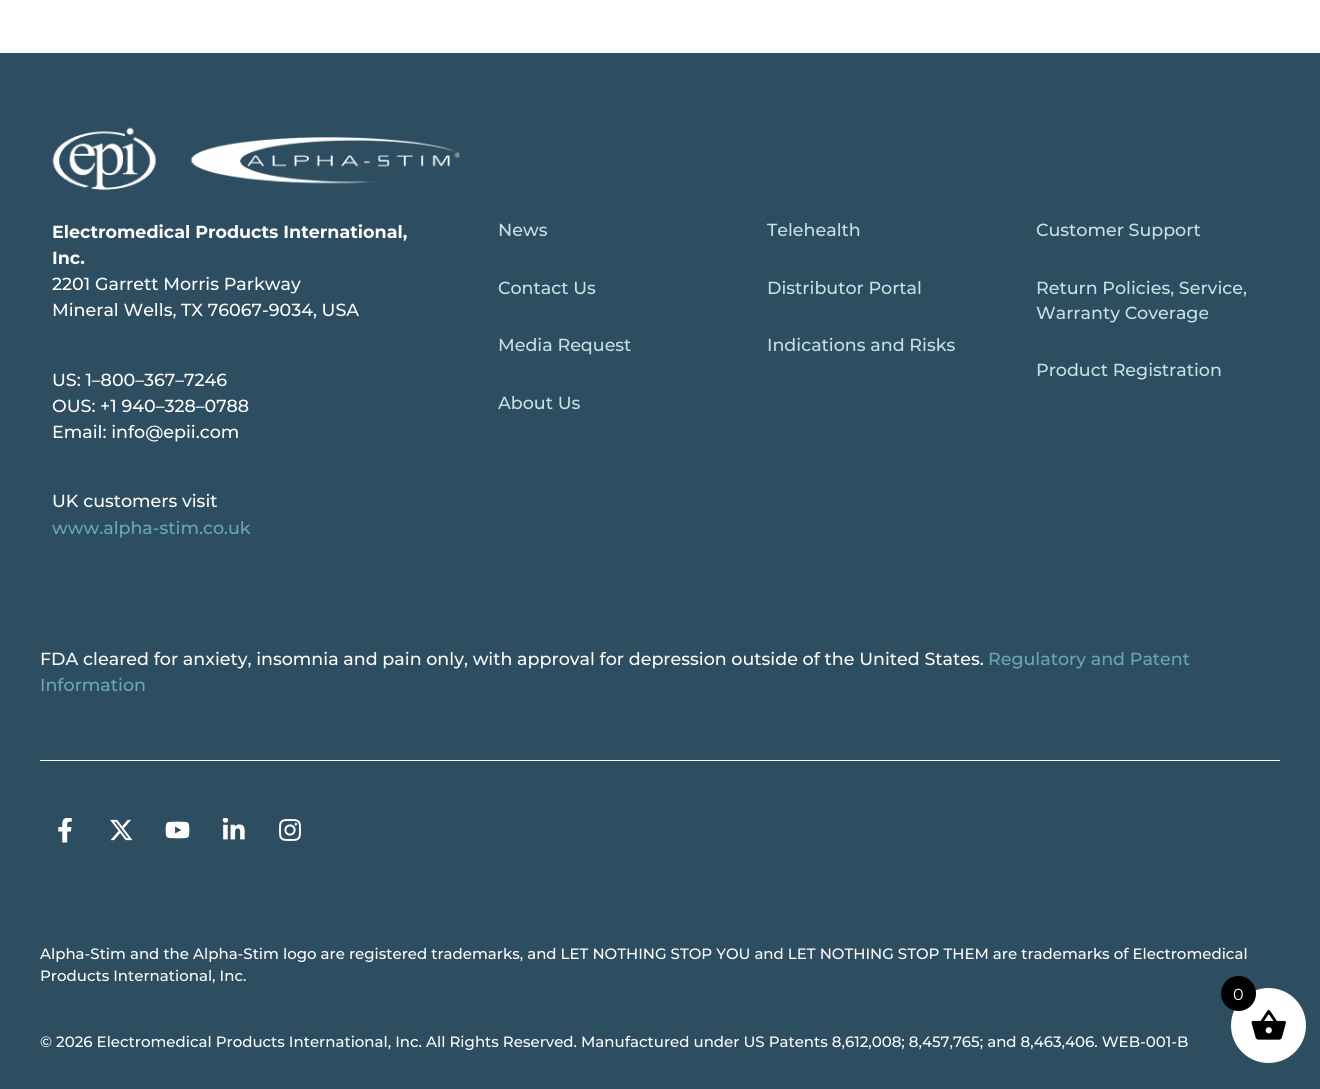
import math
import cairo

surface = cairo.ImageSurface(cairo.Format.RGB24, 1320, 1089)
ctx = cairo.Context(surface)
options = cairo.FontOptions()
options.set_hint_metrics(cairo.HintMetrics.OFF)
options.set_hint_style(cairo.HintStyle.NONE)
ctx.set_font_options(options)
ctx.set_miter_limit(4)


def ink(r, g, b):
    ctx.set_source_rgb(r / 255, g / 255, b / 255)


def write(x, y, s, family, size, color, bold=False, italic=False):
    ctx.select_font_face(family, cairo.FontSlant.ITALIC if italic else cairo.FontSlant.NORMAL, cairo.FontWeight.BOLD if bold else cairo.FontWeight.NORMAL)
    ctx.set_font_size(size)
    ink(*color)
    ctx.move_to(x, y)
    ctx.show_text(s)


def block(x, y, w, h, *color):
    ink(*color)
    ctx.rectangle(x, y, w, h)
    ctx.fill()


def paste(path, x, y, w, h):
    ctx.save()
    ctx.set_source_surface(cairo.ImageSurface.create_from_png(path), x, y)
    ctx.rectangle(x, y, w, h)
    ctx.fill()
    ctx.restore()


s1 = dict(family="Montserrat", size=17.5, color=(255, 255, 255), bold=True)
s2 = dict(family="Montserrat Medium", size=17.5, color=(255, 255, 255))
s3 = dict(family="Montserrat Medium", size=17.5, color=(103, 170, 173))
s4 = dict(family="Montserrat Medium", size=17.5, color=(198, 226, 228))
s5 = dict(family="Montserrat Medium", size=15, color=(255, 255, 255))
s6 = dict(family="Montserrat", size=16, color=(255, 255, 255))

ink(255, 255, 255)
ctx.paint()
block(0, 53, 1320, 1036, 45, 77, 96)
paste("pic1.png", 52, 127, 409, 63)
write(52, 238, "Electromedical Products International,", **s1)
write(52, 264, "Inc.", **s1)
write(52, 290, "2201 Garrett Morris Parkway", **s2)
write(52, 316, "Mineral Wells, TX 76067-9034, USA", **s2)
write(52, 386, "US: 1–800–367–7246", **s2)
write(52, 412, "OUS: +1 940–328–0788", **s2)
write(52, 438, "Email: info@epii.com", **s2)
write(52, 507, "UK customers visit", **s2)
write(52, 534, "www.alpha-stim.co.uk", **s3)
write(498, 236, "News", **s4)
write(498, 294, "Contact Us", **s4)
write(498, 351, "Media Request", **s4)
write(498, 409, "About Us", **s4)
write(767, 236, "Telehealth", **s4)
write(767, 294, "Distributor Portal", **s4)
write(767, 351, "Indications and Risks", **s4)
write(1036, 236, "Customer Support", **s4)
write(1036, 294, "Return Policies, Service,", **s4)
write(1036, 319, "Warranty Coverage", **s4)
write(1036, 376, "Product Registration", **s4)
write(40, 665, "FDA cleared for anxiety, insomnia and pain only, with approval for depression outside of the United States.", **s2)
write(988, 665, "Regulatory and Patent", **s3)
write(40, 691, "Information", **s3)
block(40, 760, 1240, 1, 255, 255, 255)
paste("pic2.png", 58, 818, 14, 25)
paste("pic3.png", 110, 819, 23, 22)
paste("pic4.png", 165, 821, 25, 18)
paste("pic5.png", 222, 818, 23, 22)
paste("pic6.png", 279, 819, 22, 22)
write(40, 959, "Alpha-Stim and the Alpha-Stim logo are registered trademarks, and LET NOTHING STOP YOU and LET NOTHING STOP THEM are trademarks of Electromedical", **s5)
write(40, 981, "Products International, Inc.", **s5)
write(40, 1047, "© 2026 Electromedical Products International, Inc. All Rights Reserved. Manufactured under US Patents 8,612,008; 8,457,765; and 8,463,406. WEB-001-B", **s5)
ctx.new_path()
ctx.arc(1268.5, 1025.5, 37.5, 0, 2 * math.pi)
ctx.fill()
paste("pic7.png", 1251, 1010, 35, 30)
ink(0, 0, 0)
ctx.arc(1238.5, 993.5, 17.5, 0, 2 * math.pi)
ctx.fill()
write(1233, 1000, "0", **s6)
surface.write_to_png("screenshot.png")
